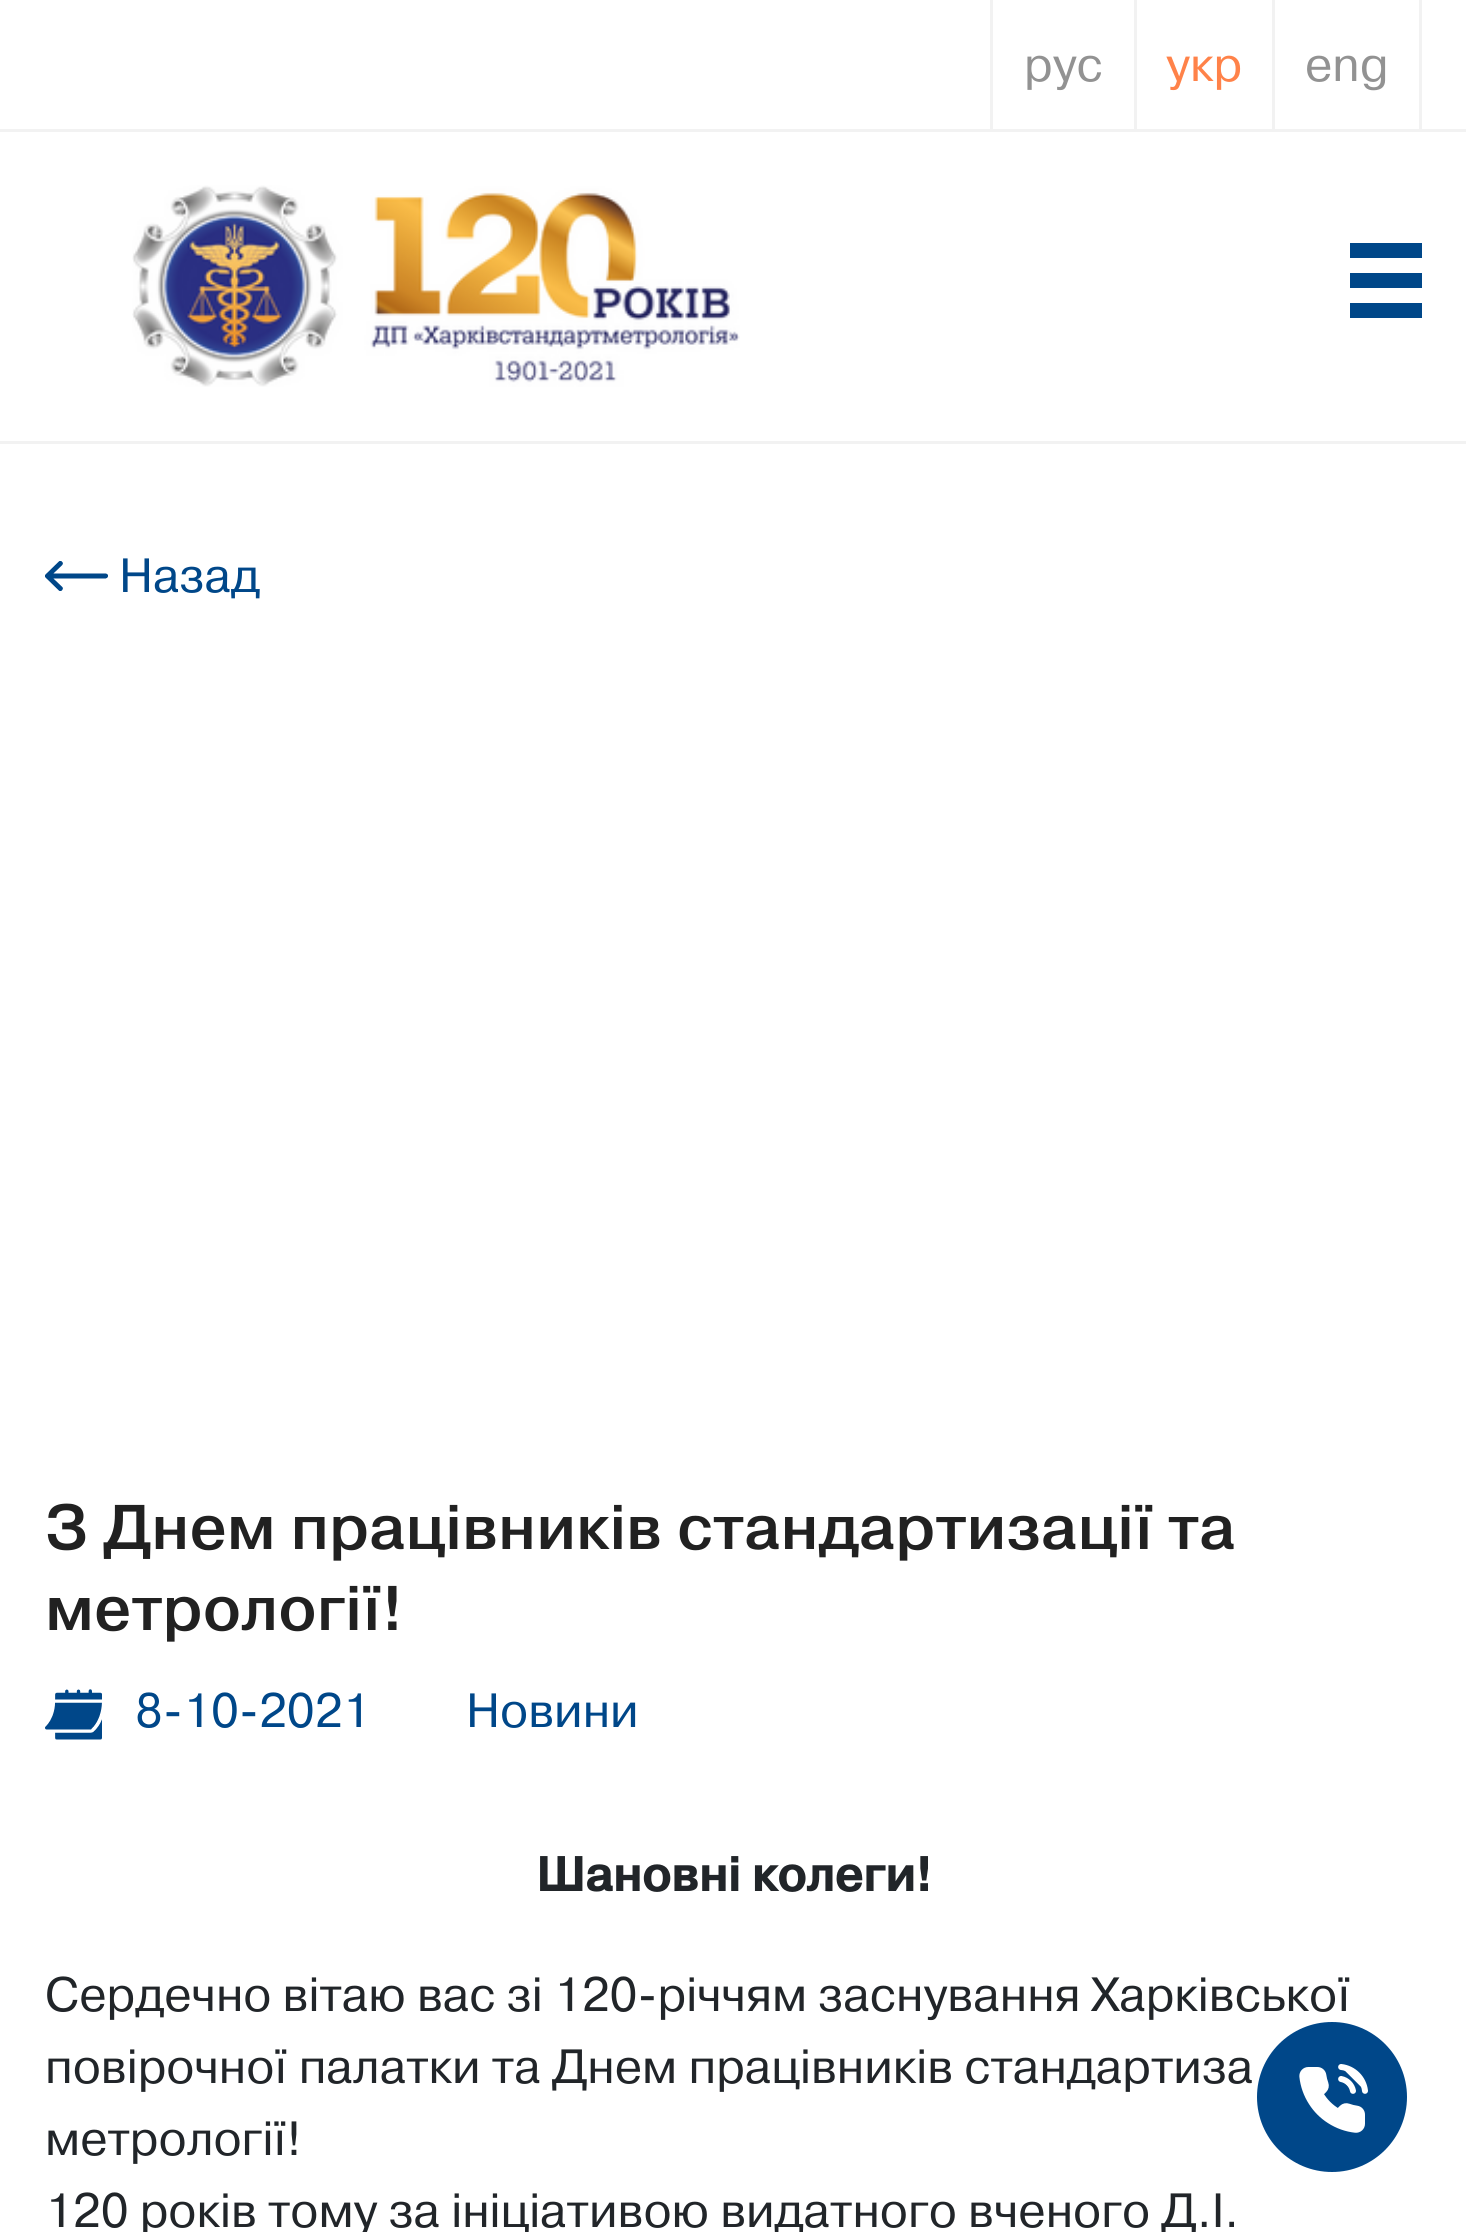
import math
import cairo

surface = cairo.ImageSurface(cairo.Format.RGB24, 1466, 2232)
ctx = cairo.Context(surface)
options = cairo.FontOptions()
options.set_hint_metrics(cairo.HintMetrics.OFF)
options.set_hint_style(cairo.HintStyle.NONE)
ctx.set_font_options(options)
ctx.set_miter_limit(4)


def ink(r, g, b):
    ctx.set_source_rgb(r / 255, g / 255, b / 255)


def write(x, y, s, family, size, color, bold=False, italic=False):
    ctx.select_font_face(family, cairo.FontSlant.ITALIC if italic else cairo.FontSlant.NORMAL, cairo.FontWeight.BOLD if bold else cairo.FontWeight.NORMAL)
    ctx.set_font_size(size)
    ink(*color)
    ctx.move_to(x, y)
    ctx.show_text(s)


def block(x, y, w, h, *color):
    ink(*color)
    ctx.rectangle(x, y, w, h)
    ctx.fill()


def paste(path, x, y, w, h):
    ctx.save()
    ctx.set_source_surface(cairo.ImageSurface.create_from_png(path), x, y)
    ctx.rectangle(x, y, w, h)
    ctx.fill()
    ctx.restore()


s1 = dict(family="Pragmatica", size=48, color=(146, 146, 146))
s2 = dict(family="Pragmatica", size=48, color=(255, 130, 73))
s3 = dict(family="Pragmatica", size=48, color=(0, 71, 137))
s4 = dict(family="Pragmatica Medium", size=63, color=(33, 33, 33))
s5 = dict(family="Pragmatica", size=48, color=(33, 37, 41), bold=True)
s6 = dict(family="Pragmatica", size=48, color=(33, 37, 41))

ink(255, 255, 255)
ctx.paint()
block(0, 129, 1466, 3, 242, 242, 242)
block(1419, 0, 3, 129, 242, 242, 242)
block(990, 0, 3, 129, 242, 242, 242)
block(1134, 0, 3, 129, 242, 242, 242)
write(1024, 81, "рус", **s1)
block(1272, 0, 3, 129, 242, 242, 242)
write(1166, 81, "укр", **s2)
write(1305, 81, "eng", **s1)
block(0, 441, 1466, 3, 242, 242, 242)
paste("pic1.png", 132, 185, 608, 202)
block(1350, 243, 72, 15, 0, 71, 137)
block(1350, 273, 72, 15, 0, 71, 137)
block(1350, 303, 72, 15, 0, 71, 137)
paste("pic2.png", 45, 561, 63, 30)
write(119, 592, "Назад", **s3)
write(45, 1549, "З Днем працівників стандартизації та", **s4)
write(45, 1630, "метрології!", **s4)
paste("pic3.png", 45, 1689, 57, 51)
write(135, 1727, "8-10-2021", **s3)
write(466, 1727, "Новини", **s3)
write(536, 1891, "Шановні колеги!", **s5)
write(45, 2011, "Сердечно вітаю вас зі 120-річчям заснування Харківської", **s6)
write(45, 2083, "повірочної палатки та Днем працівників стандартиза", **s6)
write(45, 2155, "метрології!", **s6)
write(45, 2227, "120 років тому за ініціативою видатного вченого Д.І.", **s6)
ink(0, 71, 137)
ctx.new_path()
ctx.arc(1332, 2097, 75, 0, 2 * math.pi)
ctx.fill()
paste("pic4.png", 1299, 2064, 69, 69)
surface.write_to_png("screenshot.png")
